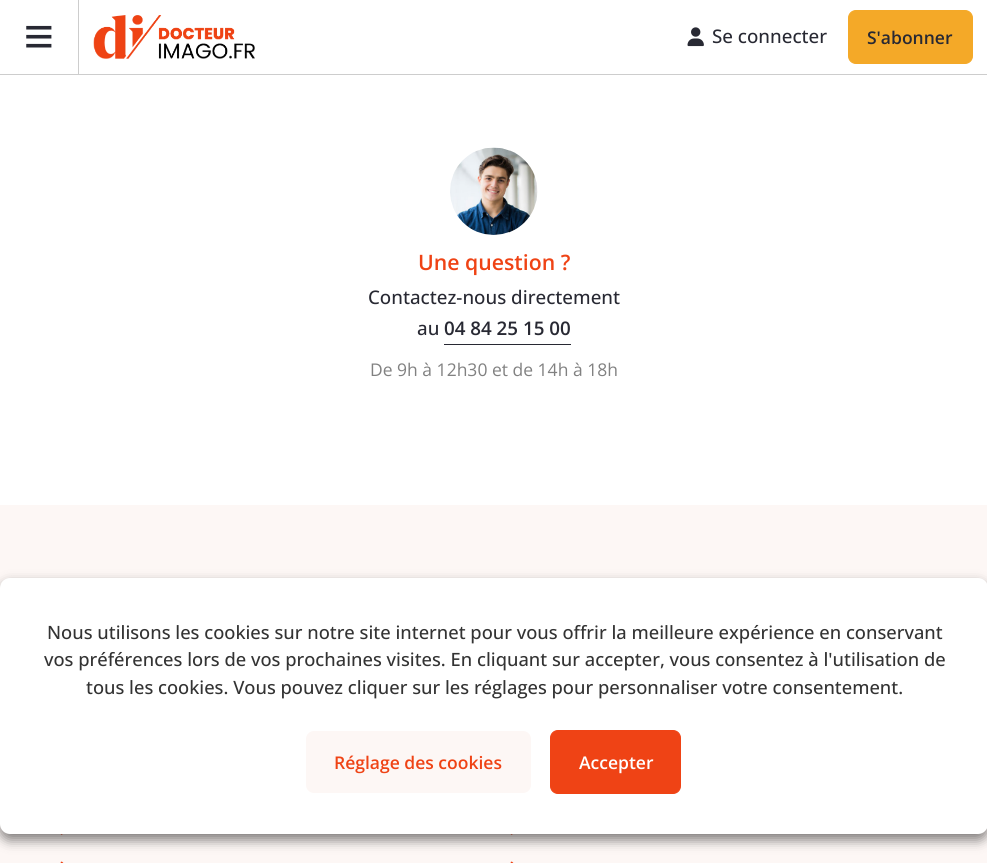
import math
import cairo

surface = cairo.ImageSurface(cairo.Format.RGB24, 987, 863)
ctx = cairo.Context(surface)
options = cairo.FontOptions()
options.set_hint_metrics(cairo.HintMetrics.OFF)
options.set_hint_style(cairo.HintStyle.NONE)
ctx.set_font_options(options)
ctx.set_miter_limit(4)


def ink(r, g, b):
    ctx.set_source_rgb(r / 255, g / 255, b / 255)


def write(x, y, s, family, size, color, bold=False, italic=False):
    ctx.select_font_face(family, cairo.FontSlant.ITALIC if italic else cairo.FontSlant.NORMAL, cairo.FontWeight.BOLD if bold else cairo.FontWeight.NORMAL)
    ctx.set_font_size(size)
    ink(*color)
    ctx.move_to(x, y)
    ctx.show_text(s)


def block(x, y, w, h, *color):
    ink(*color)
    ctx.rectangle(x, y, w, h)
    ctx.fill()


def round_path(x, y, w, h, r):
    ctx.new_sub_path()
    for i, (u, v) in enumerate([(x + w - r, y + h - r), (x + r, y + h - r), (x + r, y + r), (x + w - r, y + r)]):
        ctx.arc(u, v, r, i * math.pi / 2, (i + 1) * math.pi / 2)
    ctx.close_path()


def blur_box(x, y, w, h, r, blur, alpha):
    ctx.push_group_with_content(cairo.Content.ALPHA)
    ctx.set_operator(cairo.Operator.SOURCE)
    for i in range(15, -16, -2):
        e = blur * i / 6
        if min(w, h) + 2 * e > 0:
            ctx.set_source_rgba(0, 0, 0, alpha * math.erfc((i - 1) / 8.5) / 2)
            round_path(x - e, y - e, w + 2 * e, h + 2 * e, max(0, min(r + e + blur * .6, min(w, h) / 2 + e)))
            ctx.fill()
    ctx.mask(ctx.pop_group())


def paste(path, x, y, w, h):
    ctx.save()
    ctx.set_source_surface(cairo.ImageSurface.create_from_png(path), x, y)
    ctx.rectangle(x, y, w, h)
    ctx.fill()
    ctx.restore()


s1 = dict(family="Open Sans Medium", size=18.75, color=(40, 41, 51))
s2 = dict(family="Open Sans SemiBold", size=17.5, color=(40, 41, 51))
s3 = dict(family="Open Sans SemiBold", size=21.25, color=(239, 67, 21))
s4 = dict(family="Open Sans SemiBold", size=18.75, color=(40, 41, 51))
s5 = dict(family="Open Sans", size=17.5, color=(129, 129, 129))
s6 = dict(family="Open Sans Medium", size=18.35, color=(51, 51, 51))
s7 = dict(family="Open Sans SemiBold", size=17.5, color=(239, 67, 21))
s8 = dict(family="Open Sans SemiBold", size=17.5, color=(255, 255, 255))

ink(255, 255, 255)
ctx.paint()
block(0, 74, 987, 1, 205, 205, 205)
block(78, 0, 1, 74, 205, 205, 205)
paste("pic1.png", 26, 25, 26, 23)
paste("pic2.png", 93, 15, 162, 44)
paste("pic3.png", 687, 27, 17, 20)
write(712, 43, "Se connecter", **s1)
ink(244, 169, 40)
round_path(848.5, 10.5, 124, 53, 7.5)
ctx.fill_preserve()
ctx.set_line_width(1)
ctx.stroke()
write(867, 44, "S'abonner", **s2)
paste("pic4.png", 450, 147, 88, 88)
write(418, 270, "Une question ?", **s3)
write(368, 304, "Contactez-nous directement", **s1)
write(417, 335, "au", **s1)
block(444, 344, 127, 1, 40, 41, 51)
write(444, 335, "04 84 25 15 00", **s4)
write(370, 376, "De 9h à 12h30 et de 14h à 18h", **s5)
block(0, 505, 987, 358, 253, 247, 245)
paste("pic5.png", 60, 834, 3, 1)
paste("pic6.png", 60, 861, 4, 2)
paste("pic5.png", 510, 834, 3, 1)
paste("pic6.png", 510, 861, 4, 2)
ink(0, 0, 0)
blur_box(0, 584, 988, 256, 10, 6, 0.5)
ink(255, 255, 255)
round_path(0, 578, 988, 256, 10)
ctx.fill()
write(47, 639, "Nous utilisons les cookies sur notre site internet pour vous offrir la meilleure expérience en conservant", **s6)
write(44, 666, "vos préférences lors de vos prochaines visites. En cliquant sur accepter, vous consentez à l'utilisation de", **s6)
write(86, 694, "tous les cookies. Vous pouvez cliquer sur les réglages pour personnaliser votre consentement.", **s6)
ink(253, 247, 245)
round_path(306, 731, 225, 62, 8)
ctx.fill()
write(334, 769, "Réglage des cookies", **s7)
round_path(550.5, 730.5, 130, 63, 7.5)
ctx.fill_preserve()
ctx.stroke()
write(579, 769, "Accepter", **s8)
surface.write_to_png("screenshot.png")
